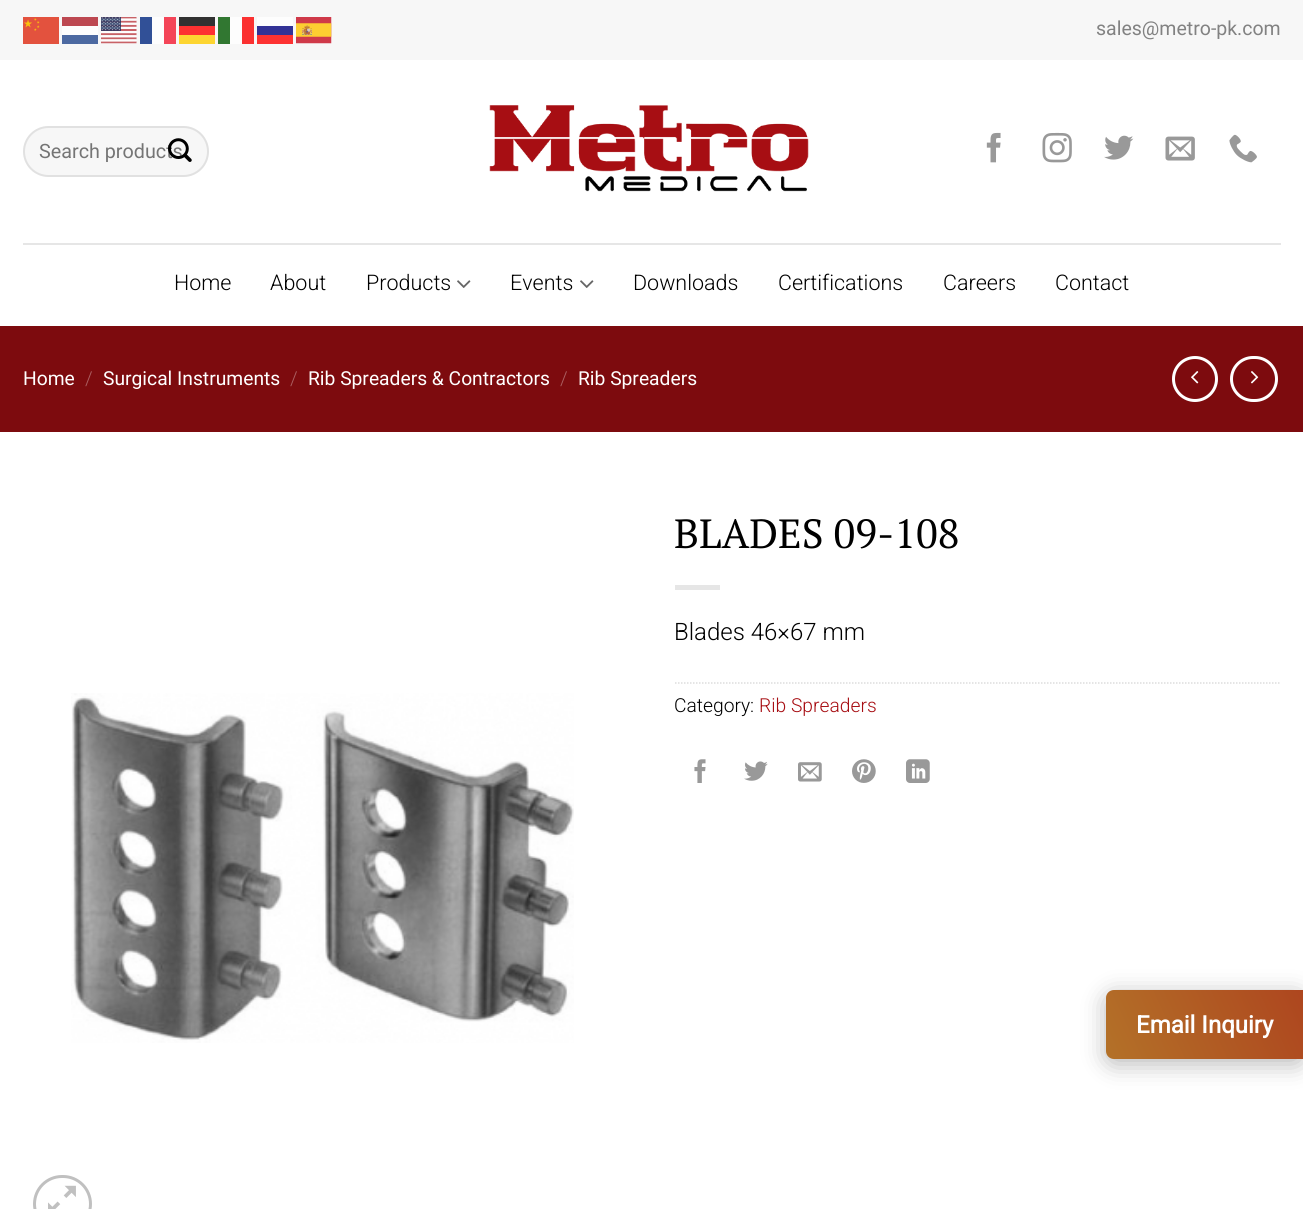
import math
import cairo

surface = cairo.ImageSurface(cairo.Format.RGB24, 1303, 1209)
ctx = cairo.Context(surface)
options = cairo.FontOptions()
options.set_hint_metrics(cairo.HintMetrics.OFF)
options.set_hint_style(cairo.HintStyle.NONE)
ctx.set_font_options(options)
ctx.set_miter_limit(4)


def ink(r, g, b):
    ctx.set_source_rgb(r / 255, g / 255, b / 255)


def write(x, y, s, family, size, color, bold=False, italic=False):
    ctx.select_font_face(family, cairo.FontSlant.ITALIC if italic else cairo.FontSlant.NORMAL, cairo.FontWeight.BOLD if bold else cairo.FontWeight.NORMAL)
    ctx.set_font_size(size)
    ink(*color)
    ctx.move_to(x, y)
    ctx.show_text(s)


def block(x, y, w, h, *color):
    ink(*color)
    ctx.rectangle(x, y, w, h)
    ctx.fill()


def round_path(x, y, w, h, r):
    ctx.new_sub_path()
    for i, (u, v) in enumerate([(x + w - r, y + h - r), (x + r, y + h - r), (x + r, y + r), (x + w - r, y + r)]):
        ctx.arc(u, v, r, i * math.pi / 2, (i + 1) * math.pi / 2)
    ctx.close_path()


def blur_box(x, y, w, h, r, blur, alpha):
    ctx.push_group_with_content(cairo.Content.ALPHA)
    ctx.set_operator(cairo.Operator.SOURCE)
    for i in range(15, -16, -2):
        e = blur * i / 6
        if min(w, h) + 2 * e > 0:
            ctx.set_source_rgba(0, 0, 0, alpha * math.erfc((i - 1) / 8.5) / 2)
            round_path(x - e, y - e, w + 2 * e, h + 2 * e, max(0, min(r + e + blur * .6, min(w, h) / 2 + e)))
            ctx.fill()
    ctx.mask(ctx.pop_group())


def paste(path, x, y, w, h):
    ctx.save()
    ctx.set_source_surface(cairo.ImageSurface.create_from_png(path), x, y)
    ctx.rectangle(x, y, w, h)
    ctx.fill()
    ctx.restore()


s1 = dict(family="Roboto", size=19.5, color=(130, 130, 130))
s2 = dict(family="Roboto", size=19.75, color=(117, 117, 117))
s3 = dict(family="Roboto Light", size=21.5, color=(0, 0, 0))
s4 = dict(family="Roboto", size=19.25, color=(255, 255, 255))
s5 = dict(family="Roboto Light", size=19.25, color=(171, 96, 98))
s6 = dict(family="PT Serif", size=40.75, color=(0, 0, 0))
s7 = dict(family="Roboto Light", size=24, color=(0, 0, 0))
s8 = dict(family="Roboto Light", size=19.25, color=(0, 0, 0))
s9 = dict(family="Roboto Light", size=19.25, color=(167, 14, 19))
s10 = dict(family="Roboto", size=24, color=(255, 255, 255), bold=True)

ink(255, 255, 255)
ctx.paint()
block(0, 0, 1303, 60, 247, 247, 247)
paste("pic1.png", 23, 17, 36, 27)
block(62, 17, 36, 9, 189, 72, 81)
paste("pic2.png", 101, 17, 36, 27)
block(140, 17, 12, 27, 49, 80, 151)
block(152, 17, 12, 27, 253, 253, 253)
block(164, 17, 12, 27, 244, 69, 88)
block(179, 17, 36, 9, 49, 49, 49)
block(218, 17, 12, 27, 49, 119, 49)
block(230, 17, 12, 27, 253, 253, 253)
block(242, 17, 12, 27, 251, 49, 49)
block(257, 17, 36, 9, 253, 253, 253)
paste("pic3.png", 296, 17, 36, 27)
block(62, 26, 36, 9, 253, 253, 253)
block(179, 26, 36, 9, 253, 49, 49)
block(257, 26, 36, 9, 50, 50, 150)
block(62, 35, 36, 9, 76, 105, 161)
block(179, 35, 36, 9, 253, 213, 49)
block(257, 35, 36, 9, 253, 50, 50)
write(1096, 35, "sales@metro-pk.com", **s1)
ink(247, 247, 247)
round_path(23, 126, 186, 51, 25.5)
ctx.fill()
round_path(24, 127, 184, 49, 24.5)
ctx.set_source_rgba(0, 0, 0, 0.09)
ctx.stroke()
write(39, 158, "Search products", **s2)
paste("pic4.png", 168, 138, 24, 24)
paste("pic5.png", 489, 105, 320, 87)
paste("pic6.png", 986, 132, 15, 31)
paste("pic7.png", 1042, 132, 30, 31)
paste("pic8.png", 1104, 135, 30, 25)
paste("pic9.png", 1165, 136, 30, 25)
paste("pic10.png", 1229, 134, 28, 29)
block(23, 243, 1258, 2, 230, 230, 230)
write(174, 290, "Home", **s3)
write(270, 290, "About", **s3)
write(366, 290, "Products", **s3)
paste("pic11.png", 457, 280, 14, 8)
write(510, 290, "Events", **s3)
paste("pic11.png", 580, 280, 14, 8)
write(633, 290, "Downloads", **s3)
write(778, 290, "Certifications", **s3)
write(943, 290, "Careers", **s3)
write(1055, 290, "Contact", **s3)
block(0, 326, 1303, 106, 125, 11, 14)
write(23, 385, "Home", **s4)
write(85, 385, "/", **s5)
write(103, 385, "Surgical Instruments", **s4)
write(290, 385, "/", **s5)
write(308, 385, "Rib Spreaders & Contractors", **s4)
write(560, 385, "/", **s5)
write(578, 385, "Rib Spreaders", **s4)
ctx.new_path()
ctx.arc(1195, 379, 21.5, 0, 2 * math.pi)
ctx.set_line_width(3)
ctx.stroke()
paste("pic12.png", 1191, 371, 8, 13)
round_path(1231.5, 357.5, 45, 43, 21.5)
ctx.stroke()
paste("pic13.png", 1251, 371, 8, 13)
write(674, 548, "BLADES 09-108", **s6)
block(675, 585, 45, 5, 230, 230, 230)
write(674, 640, "Blades 46×67 mm", **s7)
ctx.new_path()
ctx.move_to(675, 683)
ctx.line_to(1281, 683)
ink(221, 221, 221)
ctx.set_line_width(1.5)
ctx.set_dash([1.5, 1.5])
ctx.stroke()
write(674, 712, "Category:", **s8)
write(759, 712, "Rib Spreaders", **s9)
paste("pic14.png", 694, 759, 12, 24)
paste("pic15.png", 744, 761, 24, 20)
paste("pic16.png", 798, 762, 24, 20)
paste("pic17.png", 852, 759, 24, 24)
paste("pic18.png", 906, 759, 24, 24)
paste("pic19.png", 71, 693, 503, 350)
round_path(34.5, 1176.5, 56, 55, 27.5)
ink(192, 192, 192)
ctx.set_line_width(3)
ctx.set_dash([])
ctx.stroke()
paste("pic20.png", 48, 1185, 28, 24)
ink(0, 0, 0)
blur_box(1106, 995, 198, 69, 8, 12, 0.28)
gradient = cairo.LinearGradient(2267, 933, 1132, 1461)
gradient.add_color_stop_rgba(0, 0.655, 0.051, 0.071, 1)
gradient.add_color_stop_rgba(0.5, 0.655, 0.051, 0.071, 1)
gradient.add_color_stop_rgba(1, 0.718, 0.565, 0.184, 1)
ctx.set_source(gradient)
ctx.new_path()
ctx.move_to(1114, 990)
ctx.line_to(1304, 990)
ctx.line_to(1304, 1059)
ctx.line_to(1114, 1059)
ctx.curve_to(1109.5, 1059, 1106, 1055.5, 1106, 1051)
ctx.line_to(1106, 998)
ctx.curve_to(1106, 993.5, 1109.5, 990, 1114, 990)
ctx.close_path()
ctx.fill()
write(1136, 1033, "Email Inquiry", **s10)
surface.write_to_png("screenshot.png")
